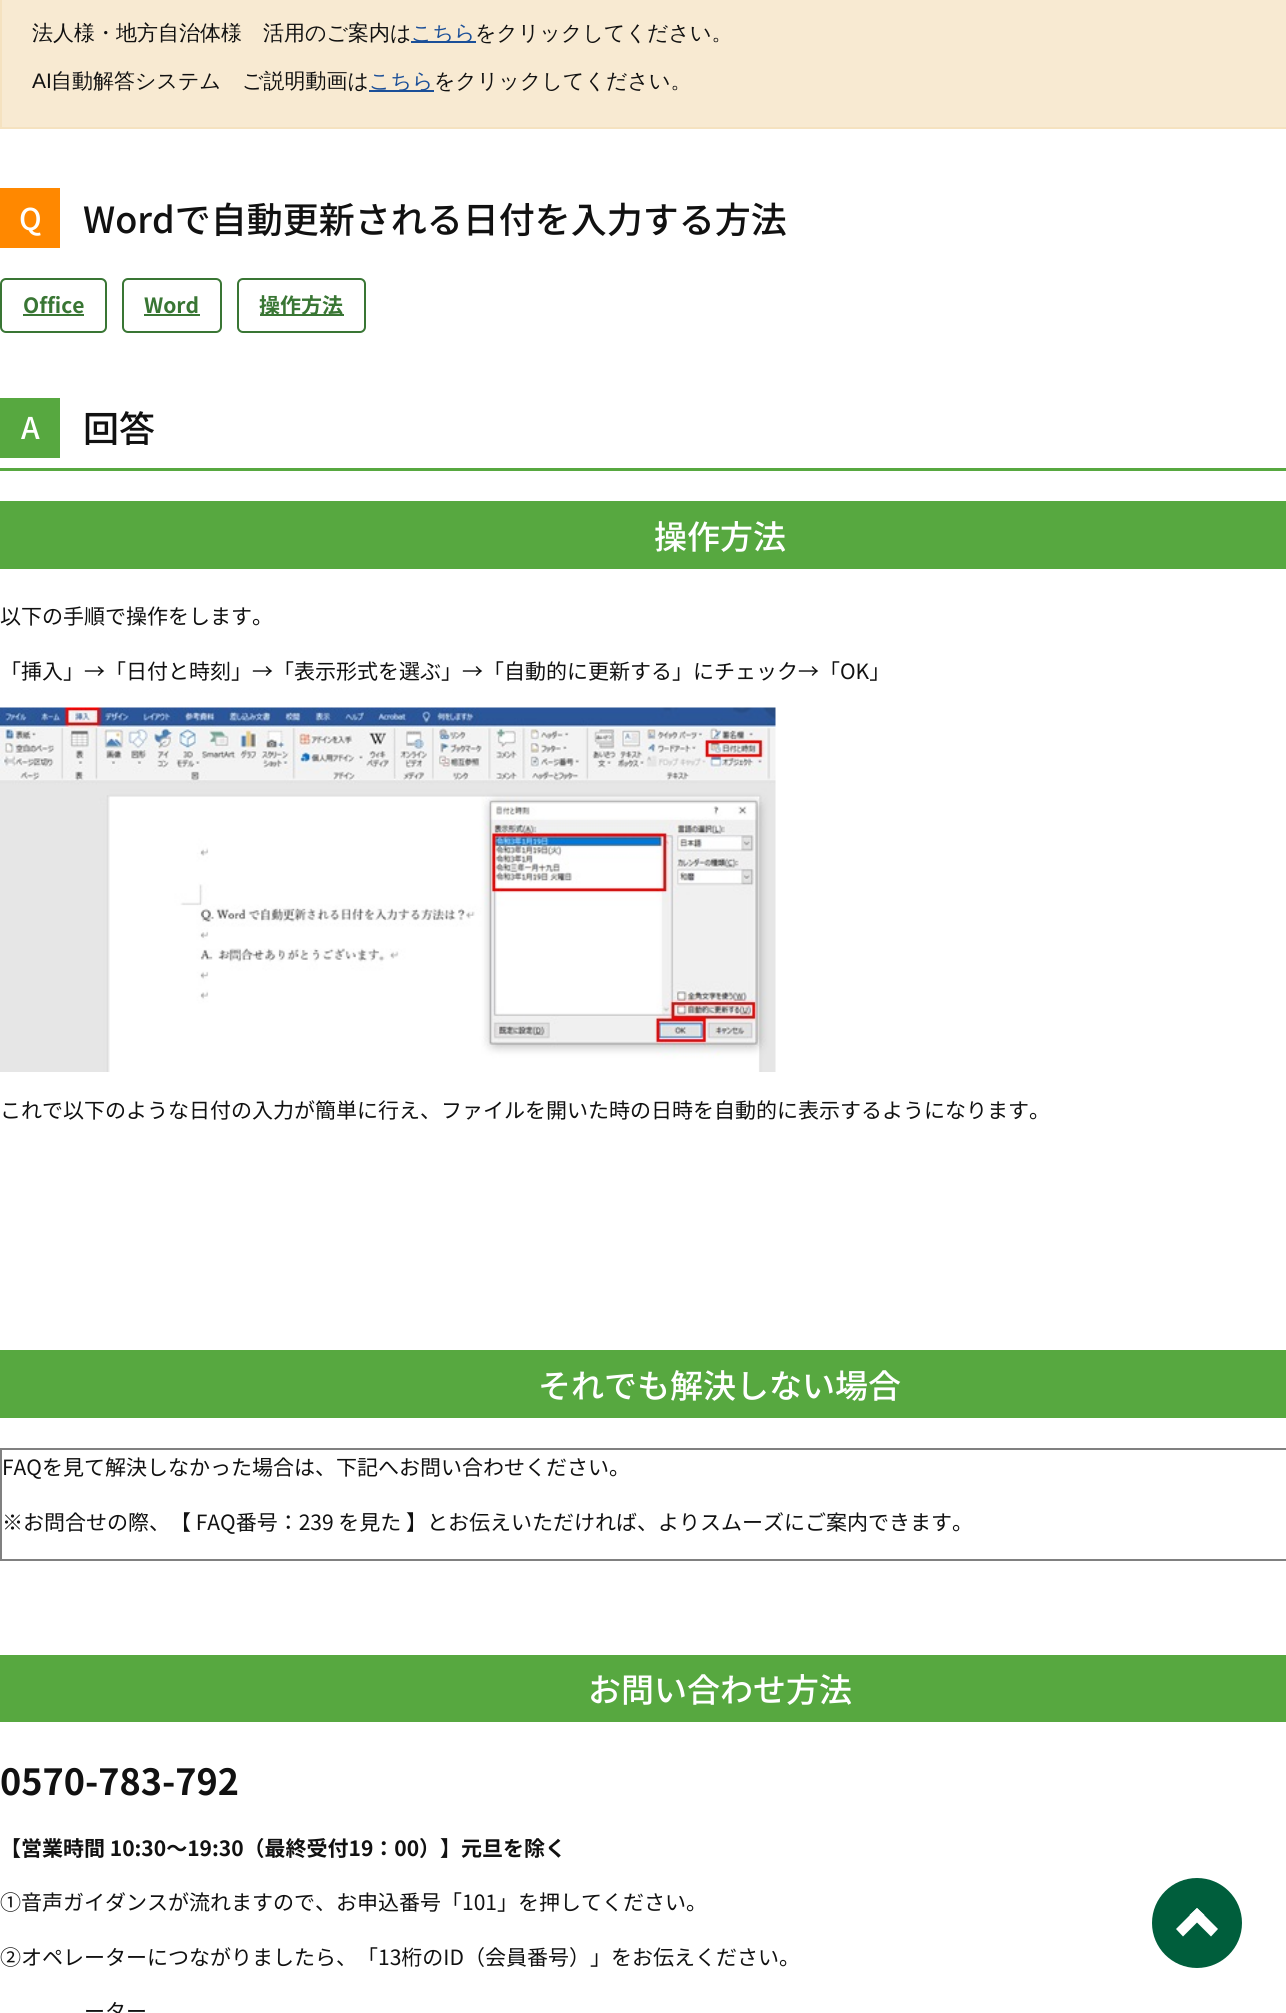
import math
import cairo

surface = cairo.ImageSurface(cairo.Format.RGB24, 1286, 2013)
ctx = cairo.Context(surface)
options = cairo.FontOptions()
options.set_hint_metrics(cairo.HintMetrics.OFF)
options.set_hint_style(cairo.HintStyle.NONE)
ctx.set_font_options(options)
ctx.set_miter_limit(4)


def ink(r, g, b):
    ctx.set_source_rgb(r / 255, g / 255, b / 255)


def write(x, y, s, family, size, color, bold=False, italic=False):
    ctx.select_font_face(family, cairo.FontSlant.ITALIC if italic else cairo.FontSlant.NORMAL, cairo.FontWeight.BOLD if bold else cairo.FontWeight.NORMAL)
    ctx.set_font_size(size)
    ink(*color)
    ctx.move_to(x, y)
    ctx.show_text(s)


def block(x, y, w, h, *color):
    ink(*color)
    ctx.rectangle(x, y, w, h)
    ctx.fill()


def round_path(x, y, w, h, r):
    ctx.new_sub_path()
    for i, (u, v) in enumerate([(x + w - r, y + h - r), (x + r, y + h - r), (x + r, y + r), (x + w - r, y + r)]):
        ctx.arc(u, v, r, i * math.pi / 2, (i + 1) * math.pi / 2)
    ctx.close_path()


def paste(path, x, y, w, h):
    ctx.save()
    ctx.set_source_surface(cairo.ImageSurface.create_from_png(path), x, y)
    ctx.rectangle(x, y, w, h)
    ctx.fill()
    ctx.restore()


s1 = dict(family="WenQuanYi Zen Hei Medium", size=21, color=(17, 17, 17))
s2 = dict(family="WenQuanYi Zen Hei Medium", size=21, color=(27, 79, 152))
s3 = dict(family="Liberation Sans", size=21, color=(17, 17, 17))
s4 = dict(family="Noto Sans JP Medium", size=30, color=(255, 255, 255))
s5 = dict(family="Noto Sans JP Medium", size=36, color=(17, 17, 17))
s6 = dict(family="Noto Sans JP", size=21, color=(57, 118, 52), bold=True)
s7 = dict(family="Noto Sans JP Medium", size=33, color=(255, 255, 255))
s8 = dict(family="Noto Sans JP", size=21, color=(17, 17, 17))
s9 = dict(family="Noto Sans JP", size=36, color=(17, 17, 17), bold=True)
s10 = dict(family="Noto Sans JP", size=21, color=(17, 17, 17), bold=True)

ink(255, 255, 255)
ctx.paint()
ink(248, 234, 210)
ctx.rectangle(1, -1, 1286, 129)
ctx.fill_preserve()
ink(245, 226, 192)
ctx.stroke()
write(32, 40, "法人様・地方自治体様　活用のご案内は", **s1)
block(411, 41, 65, 2, 27, 79, 152)
write(411, 40, "こちら", **s2)
write(475, 40, "をクリックしてください。", **s1)
write(32, 88, "AI", **s3)
write(51, 88, "自動解答システム　ご説明動画は", **s1)
block(369, 90, 65, 2, 27, 79, 152)
write(369, 88, "こちら", **s2)
write(434, 88, "をクリックしてください。", **s1)
block(0, 188, 60, 60, 255, 136, 0)
write(19, 230, "Q", **s4)
write(83, 233, "Wordで自動更新される日付を入力する方法", **s5)
round_path(1, 279, 105, 53, 5)
ink(57, 118, 52)
ctx.stroke()
write(23, 313, "Office", **s6)
block(23, 314, 61, 2, 57, 118, 52)
round_path(123, 279, 98, 53, 5)
ctx.stroke()
write(144, 313, "Word", **s6)
block(144, 314, 56, 2, 57, 118, 52)
round_path(238, 279, 127, 53, 5)
ctx.stroke()
block(260, 314, 84, 2, 57, 118, 52)
write(259, 313, "操作方法", **s6)
block(0, 398, 60, 60, 87, 168, 64)
write(21, 439, "A", **s4)
write(83, 442, "回答", **s5)
block(0, 468, 1286, 3, 87, 168, 64)
block(0, 501, 1286, 68, 87, 168, 64)
write(654, 549, "操作方法", **s7)
write(0, 624, "以下の手順で操作をします。", **s8)
write(0, 679, "「挿入」→「日付と時刻」→「表示形式を選ぶ」→「自動的に更新する」にチェック→「OK」", **s8)
paste("pic1.png", 0, 707, 776, 365)
write(0, 1118, "これで以下のような日付の入力が簡単に行え、ファイルを開いた時の日時を自動的に表示するようになります。", **s8)
block(0, 1350, 1286, 68, 87, 168, 64)
write(538, 1398, "それでも解決しない場合", **s7)
block(0, 1448, 1286, 2, 128, 128, 128)
block(0, 1559, 1286, 2, 128, 128, 128)
block(0, 1448, 2, 112, 128, 128, 128)
write(2, 1475, "FAQを見て解決しなかった場合は、下記へお問い合わせください。", **s8)
write(2, 1530, "※お問合せの際、【 FAQ番号：239 を見た 】とお伝えいただければ、よりスムーズにご案内できます。", **s8)
block(0, 1655, 1286, 67, 87, 168, 64)
write(588, 1702, "お問い合わせ方法", **s7)
write(0, 1795, "0570-783-792", **s9)
write(0, 1856, "【営業時間 10:30～19:30（最終受付19：00）】元旦を除く", **s10)
write(0, 1910, "①音声ガイダンスが流れますので、お申込番号「101」を押してください。", **s8)
write(0, 1965, "②オペレーターにつながりましたら、「13桁のID（会員番号）」をお伝えください。", **s8)
write(84, 2019, "ーター", **s8)
ink(0, 94, 60)
ctx.new_path()
ctx.arc(1197, 1923, 45, 0, 2 * math.pi)
ctx.fill()
ink(255, 255, 255)
ctx.new_path()
ctx.move_to(1197, 1908)
ctx.line_to(1204.5, 1915)
ctx.line_to(1183, 1936.5)
ctx.line_to(1176, 1929)
ctx.close_path()
ctx.fill()
ctx.new_path()
ctx.move_to(1197, 1908)
ctx.line_to(1218, 1929)
ctx.line_to(1211, 1936.5)
ctx.line_to(1189.5, 1915)
ctx.close_path()
ctx.fill()
surface.write_to_png("screenshot.png")
